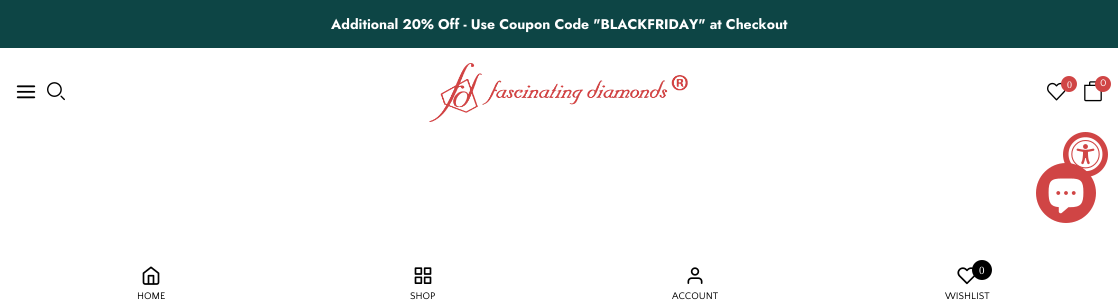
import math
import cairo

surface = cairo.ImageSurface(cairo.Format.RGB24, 1118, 308)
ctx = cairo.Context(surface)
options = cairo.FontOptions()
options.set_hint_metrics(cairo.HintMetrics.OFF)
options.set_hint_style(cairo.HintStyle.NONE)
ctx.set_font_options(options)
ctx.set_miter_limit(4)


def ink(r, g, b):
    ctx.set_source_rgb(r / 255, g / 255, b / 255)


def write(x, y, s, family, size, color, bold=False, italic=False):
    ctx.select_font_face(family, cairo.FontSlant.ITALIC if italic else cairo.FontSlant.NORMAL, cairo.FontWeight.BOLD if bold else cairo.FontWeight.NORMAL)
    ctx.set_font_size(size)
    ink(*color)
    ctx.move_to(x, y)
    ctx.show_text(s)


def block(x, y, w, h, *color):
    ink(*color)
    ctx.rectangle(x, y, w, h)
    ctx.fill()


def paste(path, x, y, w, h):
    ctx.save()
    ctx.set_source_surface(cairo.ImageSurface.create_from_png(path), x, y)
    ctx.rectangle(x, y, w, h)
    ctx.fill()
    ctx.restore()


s1 = dict(family="Jost", size=14, color=(255, 255, 255), bold=True)
s2 = dict(family="Liberation Serif", size=10, color=(255, 255, 255))
s3 = dict(family="Quattrocento Sans", size=10, color=(255, 255, 255))
s4 = dict(family="Quattrocento Sans", size=10, color=(0, 0, 0))
s5 = dict(family="Liberation Serif", size=11, color=(255, 255, 255))

ink(255, 255, 255)
ctx.paint()
block(0, 0, 1118, 48, 13, 69, 69)
write(331, 29, "Additional 20% Off - Use Coupon Code \"BLACKFRIDAY\" at Checkout", **s1)
paste("pic1.png", 16, 85, 20, 14)
paste("pic2.png", 47, 82, 18, 19)
paste("pic3.png", 429, 63, 259, 59)
paste("pic4.png", 1047, 82, 19, 19)
ink(208, 69, 69)
ctx.arc(1069, 84, 8, 0, 2 * math.pi)
ctx.fill()
write(1067, 88, "0", **s2)
paste("pic5.png", 1084, 81, 18, 21)
ink(208, 69, 69)
ctx.arc(1103, 84, 8, 0, 2 * math.pi)
ctx.fill()
write(1100, 86, "0", **s3)
paste("pic6.png", 142, 266, 18, 19)
write(137, 299, "HOME", **s4)
paste("pic7.png", 414, 267, 18, 17)
write(410, 299, "SHOP", **s4)
paste("pic8.png", 687, 267, 16, 17)
write(672, 299, "ACCOUNT", **s4)
paste("pic9.png", 957, 267, 18, 18)
ctx.arc(982, 270, 10, 0, 2 * math.pi)
ctx.fill()
write(979, 274, "0", **s5)
write(945, 299, "WISHLIST", **s4)
ink(208, 69, 69)
ctx.new_path()
ctx.arc(1085.5, 154.5, 22.5, 0, 2 * math.pi)
ctx.fill()
paste("pic10.png", 1068, 137, 35, 35)
ctx.arc(1066, 193, 30, 0, 2 * math.pi)
ctx.fill()
paste("pic11.png", 1048, 178, 36, 36)
surface.write_to_png("screenshot.png")
